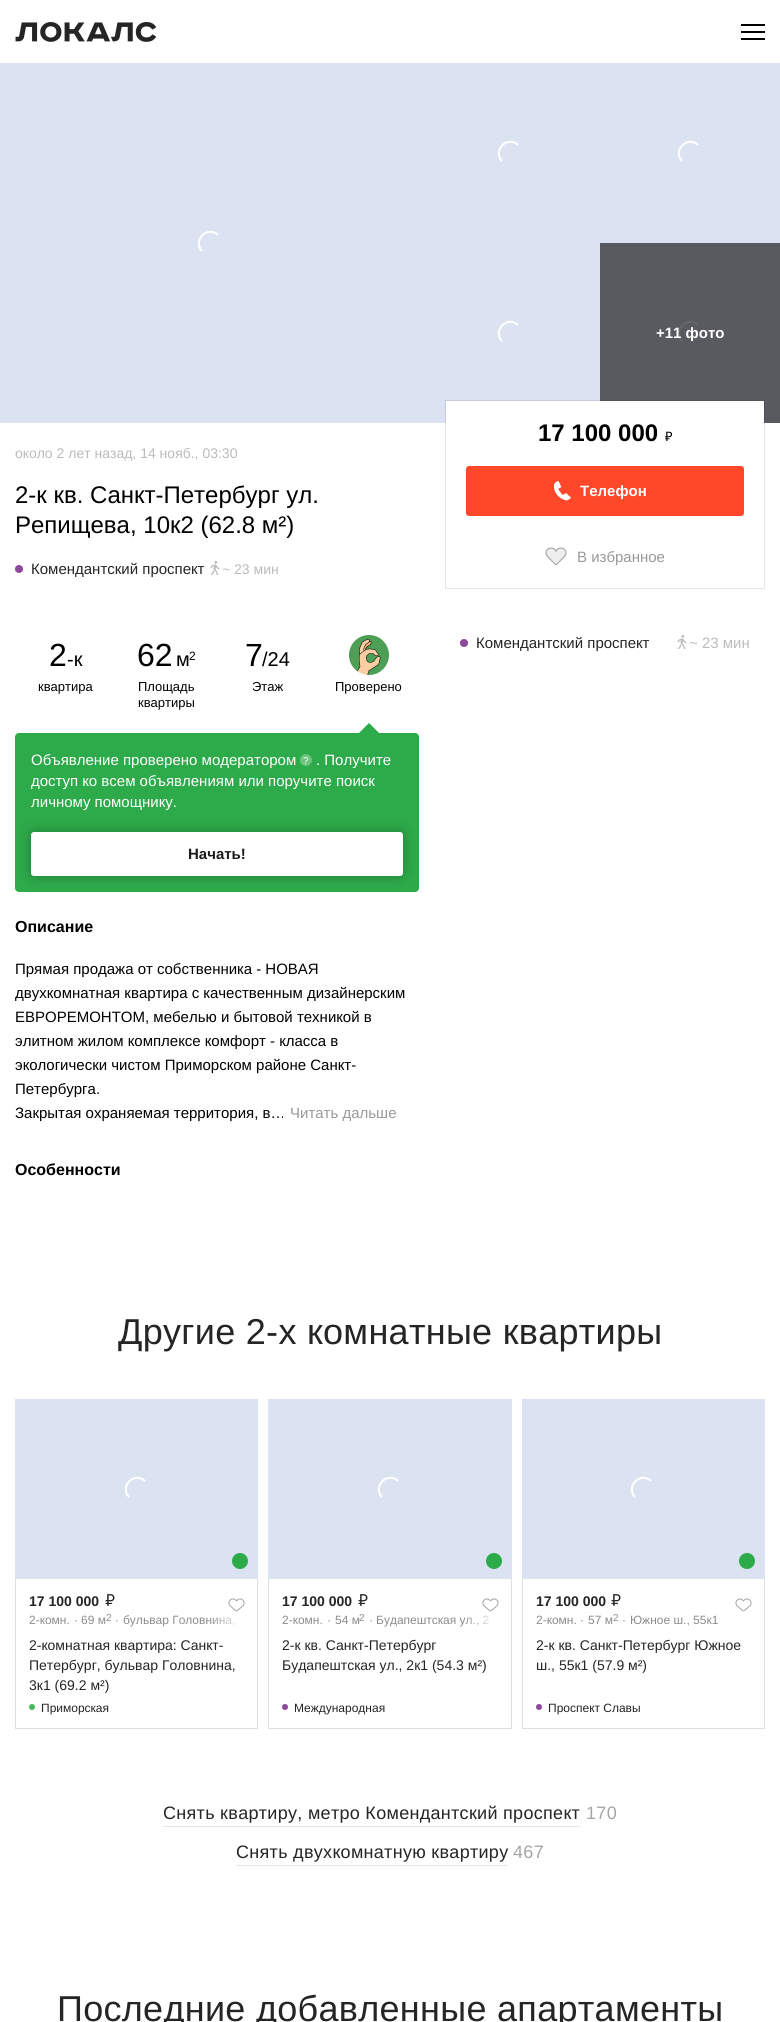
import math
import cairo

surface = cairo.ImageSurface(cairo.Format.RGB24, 780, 2022)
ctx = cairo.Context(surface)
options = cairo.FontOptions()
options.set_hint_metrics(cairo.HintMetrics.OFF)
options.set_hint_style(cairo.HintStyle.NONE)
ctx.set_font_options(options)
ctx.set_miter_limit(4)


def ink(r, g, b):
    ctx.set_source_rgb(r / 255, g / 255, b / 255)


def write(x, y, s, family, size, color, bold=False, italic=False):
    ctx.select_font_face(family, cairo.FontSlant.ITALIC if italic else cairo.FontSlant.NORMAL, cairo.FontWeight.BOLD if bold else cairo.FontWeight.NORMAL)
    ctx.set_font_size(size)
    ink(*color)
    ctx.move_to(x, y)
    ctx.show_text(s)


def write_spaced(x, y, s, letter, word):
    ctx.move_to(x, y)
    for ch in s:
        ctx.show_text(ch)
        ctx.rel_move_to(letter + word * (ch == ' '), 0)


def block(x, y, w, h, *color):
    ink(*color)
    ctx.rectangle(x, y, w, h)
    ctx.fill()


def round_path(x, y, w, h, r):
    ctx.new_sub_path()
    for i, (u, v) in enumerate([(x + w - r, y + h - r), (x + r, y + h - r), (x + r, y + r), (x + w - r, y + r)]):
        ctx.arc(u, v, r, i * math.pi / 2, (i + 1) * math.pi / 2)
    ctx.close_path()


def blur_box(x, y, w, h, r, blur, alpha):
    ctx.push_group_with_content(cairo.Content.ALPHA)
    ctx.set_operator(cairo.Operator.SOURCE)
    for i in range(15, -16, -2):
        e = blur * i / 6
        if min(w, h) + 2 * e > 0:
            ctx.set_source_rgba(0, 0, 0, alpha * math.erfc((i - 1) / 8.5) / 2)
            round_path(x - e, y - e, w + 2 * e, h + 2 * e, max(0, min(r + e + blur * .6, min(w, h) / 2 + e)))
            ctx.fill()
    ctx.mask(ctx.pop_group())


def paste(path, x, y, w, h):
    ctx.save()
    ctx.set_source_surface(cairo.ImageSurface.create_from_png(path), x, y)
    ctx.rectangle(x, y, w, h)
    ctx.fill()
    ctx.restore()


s1 = dict(family="Liberation Sans", size=15, color=(255, 255, 255), bold=True)
s2 = dict(family="Liberation Sans", size=14, color=(187, 187, 187))
s3 = dict(family="Liberation Sans", size=24, color=(0, 0, 0))
s4 = dict(family="Liberation Sans", size=15, color=(37, 37, 37))
s5 = dict(family="Liberation Sans", size=32, color=(0, 0, 0))
s6 = dict(family="Liberation Sans", size=20, color=(0, 0, 0))
s7 = dict(family="Liberation Sans", size=13, color=(0, 0, 0))
s8 = dict(family="Liberation Sans", size=12, color=(0, 0, 0))
s9 = dict(family="Liberation Sans", size=15, color=(255, 255, 255))
s10 = dict(family="Liberation Sans", size=10, color=(255, 255, 255))
s11 = dict(family="Liberation Sans", size=15, color=(26, 26, 26), bold=True)
s12 = dict(family="Liberation Sans", size=16, color=(0, 0, 0), bold=True)
s13 = dict(family="Liberation Sans", size=15, color=(0, 0, 0))
s14 = dict(family="Liberation Sans", size=15, color=(153, 153, 153))
s15 = dict(family="Liberation Sans", size=24, color=(0, 0, 0), bold=True)
s16 = dict(family="Noto Sans", size=13, color=(0, 0, 0))
s17 = dict(family="Liberation Sans", size=15, color=(187, 187, 187))
s18 = dict(family="Liberation Sans", size=14, color=(37, 37, 37), bold=True)
s19 = dict(family="Liberation Sans", size=12, color=(140, 140, 140))
s20 = dict(family="Liberation Sans", size=10, color=(140, 140, 140))
s21 = dict(family="Liberation Sans", size=14, color=(37, 37, 37))
s22 = dict(family="Liberation Sans", size=12, color=(37, 37, 37))

ink(255, 255, 255)
ctx.paint()
paste("pic1.png", 15, 22, 142, 20)
block(741, 24, 24, 2, 0, 0, 0)
block(741, 38, 24, 2, 0, 0, 0)
block(741, 31, 24, 2, 0, 0, 0)
block(0, 63, 780, 360, 219, 226, 241)
block(600, 243, 180, 180, 88, 90, 96)
ctx.new_path()
ctx.move_to(502, 161)
ctx.curve_to(492, 150.5, 507.5, 135, 518, 145)
ink(255, 255, 255)
ctx.stroke()
ctx.new_path()
ctx.move_to(682, 161)
ctx.curve_to(672, 150.5, 687.5, 135, 698, 145)
ctx.stroke()
ctx.new_path()
ctx.move_to(202, 251)
ctx.curve_to(192, 240.5, 207.5, 225, 218, 235)
ctx.stroke()
ctx.new_path()
ctx.move_to(502, 341)
ctx.curve_to(492, 330.5, 507.5, 315, 518, 325)
ctx.stroke()
ctx.new_path()
ctx.move_to(682, 341)
ctx.curve_to(672, 330.5, 687.5, 315, 698, 325)
ink(102, 102, 102)
ctx.stroke()
write(656, 338, "+11 фото", **s1)
write(15, 458, "около 2 лет назад, 14 нояб., 03:30", **s2)
write(15, 503, "2-к кв. Санкт-Петербург ул.", **s3)
write(15, 533, "Репищева, 10к2 (62.8 м²)", **s3)
ink(142, 72, 156)
ctx.new_path()
ctx.arc(19, 569, 4, 0, 2 * math.pi)
ctx.fill()
write(31, 574, "Комендантский проспект", **s4)
paste("pic2.png", 210, 561, 10, 14)
write(222, 574, "~ 23 мин", **s2)
write(49, 666, "2", **s5)
write(67, 666, "-к", **s6)
write(38, 691, "квартира", **s7)
write(137, 666, "62", **s5)
write(176, 666, "м", **s6)
write(189, 660, "2", **s8)
write(138, 691, "Площадь", **s7)
write(138, 707, "квартиры", **s7)
write(245, 666, "7", **s5)
write(262, 666, "/24", **s6)
write(252, 691, "Этаж", **s7)
paste("pic3.png", 349, 635, 40, 40)
write(335, 691, "Проверено", **s7)
ink(45, 170, 74)
ctx.new_path()
ctx.move_to(379, 733)
ctx.line_to(359, 733)
ctx.line_to(369, 723)
ctx.close_path()
ctx.fill()
round_path(15, 733, 404, 159, 4)
ctx.fill()
write(31, 765, "Объявление проверено модератором", **s9)
ink(108, 196, 128)
ctx.new_path()
ctx.arc(306, 760, 6, 0, 2 * math.pi)
ctx.fill()
write(303, 764, "?", **s10)
write(316, 765, ". Получите", **s9)
write(31, 786, "доступ ко всем объявлениям или поручите поиск", **s9)
write(31, 807, "личному помощнику.", **s9)
ink(0, 0, 0)
blur_box(31, 832, 372, 44, 3, 6.5, 0.27)
ink(255, 255, 255)
round_path(31, 832, 372, 44, 3)
ctx.fill()
write(188, 859, "Начать!", **s11)
write(15, 932, "Описание", **s12)
write(15, 974, "Прямая продажа от собственника - НОВАЯ", **s13)
write(15, 998, "двухкомнатная квартира с качественным дизайнерским", **s13)
write(15, 1022, "ЕВРОРЕМОНТОМ, мебелью и бытовой техникой в", **s13)
write(15, 1046, "элитном жилом комплексе комфорт - класса в", **s13)
write(15, 1070, "экологически чистом Приморском районе Санкт-", **s13)
write(15, 1094, "Петербурга.", **s13)
write(15, 1118, "Закрытая охраняемая территория, в…", **s13)
write(290, 1118, "Читать дальше", **s14)
write(15, 1175, "Особенности", **s12)
ctx.rectangle(445.5, 400.5, 319, 188)
ctx.set_source_rgba(0, 0, 0, 0.1)
ctx.set_line_width(1)
ctx.stroke()
block(446, 401, 318, 22, 255, 255, 255)
write(538, 441, "17 100 000", **s15)
write(665, 441, "₽", **s16)
ink(255, 71, 41)
round_path(466, 466, 278, 50, 3)
ctx.fill()
paste("pic4.png", 554, 481, 17, 20)
write(580, 496, "Телефон", **s1)
paste("pic5.png", 545, 547, 22, 18)
write(577, 562, "В избранное", **s14)
ink(142, 72, 156)
ctx.new_path()
ctx.arc(464, 643, 4, 0, 2 * math.pi)
ctx.fill()
write(476, 648, "Комендантский проспект", **s4)
paste("pic2.png", 677, 635, 10, 14)
write(689, 648, "~ 23 мин", **s17)
ctx.set_font_size(36)
ink(37, 37, 37)
write_spaced(118, 1344, "Другие 2-х комнатные квартиры", 0.3, 0)
ctx.rectangle(15.5, 1399.5, 242, 329)
ink(223, 223, 223)
ctx.stroke()
block(15, 1399, 243, 180, 219, 226, 241)
ctx.new_path()
ctx.move_to(129, 1497)
ctx.curve_to(119, 1486.5, 134.5, 1471, 145, 1481)
ink(255, 255, 255)
ctx.set_line_width(2)
ctx.stroke()
ink(45, 170, 74)
ctx.arc(240, 1561, 8, 0, 2 * math.pi)
ctx.fill()
write(29, 1606, "17 100 000", **s18)
paste("pic6.png", 105, 1594, 10, 12)
paste("pic7.png", 228, 1598, 17, 14)
write(29, 1624, "2-комн.", **s19)
write(81, 1624, "69 м", **s19)
write(106, 1621, "2", **s20)
write(123, 1624, "бульвар Головнина,", **s19)
write(74, 1624, "·", **s19)
write(115, 1624, "·", **s19)
gradient = cairo.LinearGradient(209, 1620, 244, 1620)
gradient.add_color_stop_rgba(0, 1, 1, 1, 0)
gradient.add_color_stop_rgba(1, 1, 1, 1, 1)
ctx.set_source(gradient)
ctx.rectangle(210, 1617, 25, 9)
ctx.fill()
write(29, 1650, "2-комнатная квартира: Санкт-", **s21)
write(29, 1670, "Петербург, бульвар Головнина,", **s21)
write(29, 1690, "3к1 (69.2 м²)", **s21)
ink(73, 184, 95)
ctx.new_path()
ctx.arc(32, 1707, 3, 0, 2 * math.pi)
ctx.fill()
write(41, 1712, "Приморская", **s22)
ctx.rectangle(268.5, 1399.5, 243, 329)
ink(223, 223, 223)
ctx.set_line_width(1)
ctx.stroke()
block(268, 1399, 244, 180, 219, 226, 241)
ctx.new_path()
ctx.move_to(382, 1497)
ctx.curve_to(372, 1486.5, 387.5, 1471, 398, 1481)
ink(255, 255, 255)
ctx.set_line_width(2)
ctx.stroke()
ink(45, 170, 74)
ctx.arc(494, 1561, 8, 0, 2 * math.pi)
ctx.fill()
write(282, 1606, "17 100 000", **s18)
paste("pic6.png", 358, 1594, 10, 12)
paste("pic7.png", 482, 1598, 17, 14)
write(282, 1624, "2-комн.", **s19)
write(335, 1624, "54 м", **s19)
write(359, 1621, "2", **s20)
write(376, 1624, "Будапештская ул., 2", **s19)
write(327, 1624, "·", **s19)
write(369, 1624, "·", **s19)
gradient = cairo.LinearGradient(463, 1620, 498, 1620)
gradient.add_color_stop_rgba(0, 1, 1, 1, 0)
gradient.add_color_stop_rgba(1, 1, 1, 1, 1)
ctx.set_source(gradient)
ctx.rectangle(464, 1615, 25, 11)
ctx.fill()
write(282, 1650, "2-к кв. Санкт-Петербург", **s21)
write(282, 1670, "Будапештская ул., 2к1 (54.3 м²)", **s21)
ink(142, 72, 156)
ctx.new_path()
ctx.arc(285, 1707, 3, 0, 2 * math.pi)
ctx.fill()
write(294, 1712, "Международная", **s22)
ctx.rectangle(522.5, 1399.5, 242, 329)
ink(223, 223, 223)
ctx.set_line_width(1)
ctx.stroke()
block(522, 1399, 243, 180, 219, 226, 241)
ctx.new_path()
ctx.move_to(635, 1497)
ctx.curve_to(625, 1486.5, 640.5, 1471, 651, 1481)
ink(255, 255, 255)
ctx.set_line_width(2)
ctx.stroke()
ink(45, 170, 74)
ctx.arc(747, 1561, 8, 0, 2 * math.pi)
ctx.fill()
write(536, 1606, "17 100 000", **s18)
paste("pic6.png", 611, 1594, 10, 12)
paste("pic7.png", 735, 1598, 17, 14)
write(536, 1624, "2-комн.", **s19)
write(580, 1624, "·", **s19)
write(588, 1624, "57 м", **s19)
write(613, 1621, "2", **s20)
write(622, 1624, "·", **s19)
write(630, 1624, "Южное ш., 55к1", **s19)
write(536, 1650, "2-к кв. Санкт-Петербург Южное", **s21)
write(536, 1670, "ш., 55к1 (57.9 м²)", **s21)
ink(142, 72, 156)
ctx.new_path()
ctx.arc(539, 1707, 3, 0, 2 * math.pi)
ctx.fill()
write(548, 1712, "Проспект Славы", **s22)
block(163, 1826, 417, 1, 231, 231, 231)
ctx.set_font_size(18)
ink(37, 37, 37)
write_spaced(163, 1819, "Снять квартиру, метро Комендантский проспект", 0.3, 0)
ink(166, 166, 166)
write_spaced(586, 1819, "170", 0.3, 0)
block(236, 1865, 272, 1, 231, 231, 231)
ink(37, 37, 37)
write_spaced(236, 1858, "Снять двухкомнатную квартиру", 0.3, 0)
ink(166, 166, 166)
write_spaced(513, 1858, "467", 0.3, 0)
ctx.set_font_size(36)
ink(37, 37, 37)
write_spaced(57, 2021, "Последние добавленные апартаменты", 0.3, 0)
surface.write_to_png("screenshot.png")
